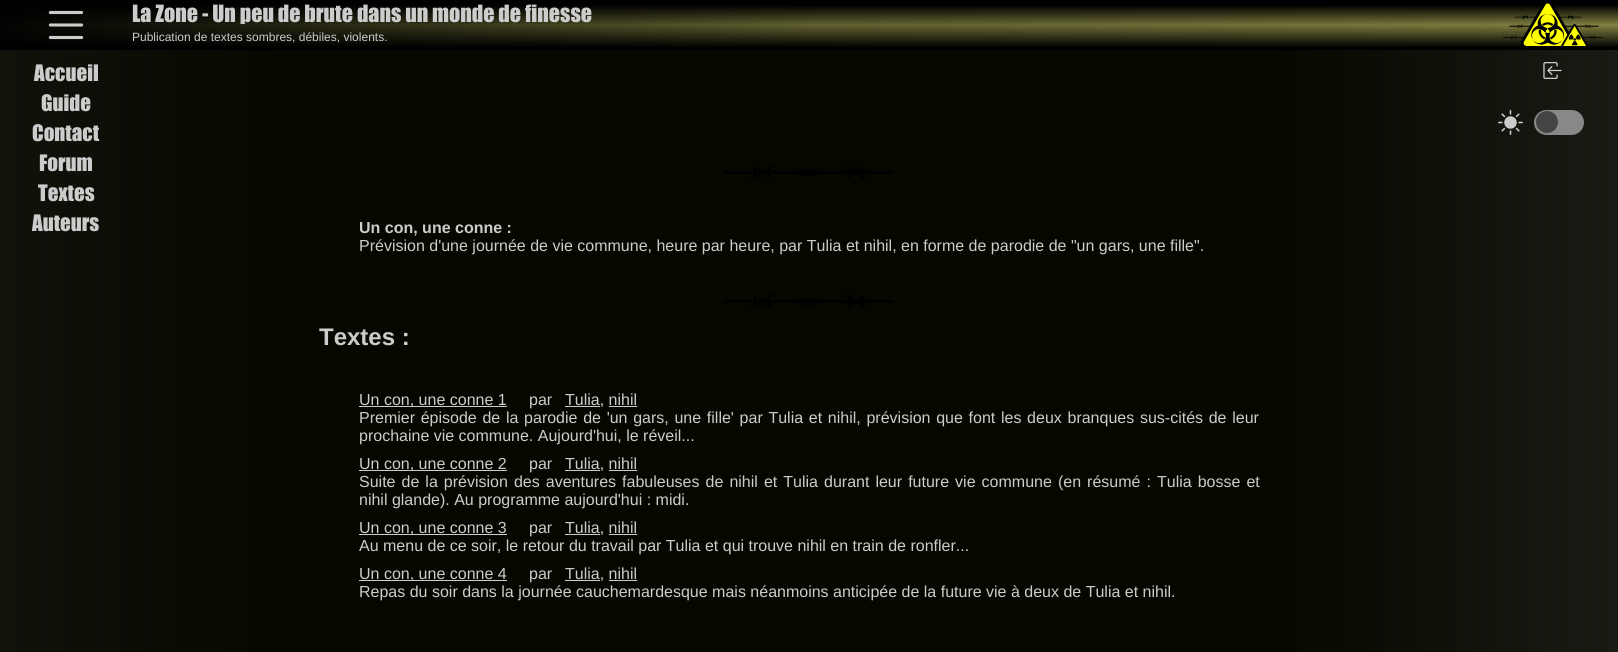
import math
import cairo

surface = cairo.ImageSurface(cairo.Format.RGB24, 1618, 652)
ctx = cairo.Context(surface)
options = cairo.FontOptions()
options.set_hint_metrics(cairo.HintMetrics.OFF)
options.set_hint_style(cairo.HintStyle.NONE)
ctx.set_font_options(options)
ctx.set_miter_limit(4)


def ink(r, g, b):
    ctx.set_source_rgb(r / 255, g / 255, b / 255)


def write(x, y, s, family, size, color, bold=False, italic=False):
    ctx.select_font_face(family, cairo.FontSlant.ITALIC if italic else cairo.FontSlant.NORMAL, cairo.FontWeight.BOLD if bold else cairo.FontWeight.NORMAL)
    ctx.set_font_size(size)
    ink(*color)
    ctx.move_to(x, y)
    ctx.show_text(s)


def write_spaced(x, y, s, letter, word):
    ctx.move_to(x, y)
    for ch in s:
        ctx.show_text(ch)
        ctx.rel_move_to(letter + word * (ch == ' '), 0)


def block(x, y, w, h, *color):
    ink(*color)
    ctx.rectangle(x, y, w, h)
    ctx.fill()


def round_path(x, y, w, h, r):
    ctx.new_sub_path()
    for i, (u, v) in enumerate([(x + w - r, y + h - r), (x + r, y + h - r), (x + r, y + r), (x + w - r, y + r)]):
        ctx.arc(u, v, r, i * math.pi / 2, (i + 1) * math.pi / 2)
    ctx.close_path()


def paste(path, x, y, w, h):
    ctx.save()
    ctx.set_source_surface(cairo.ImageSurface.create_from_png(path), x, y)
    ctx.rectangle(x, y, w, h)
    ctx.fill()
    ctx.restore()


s1 = dict(family="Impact", size=22, color=(204, 204, 204))
s2 = dict(family="Liberation Sans", size=12, color=(204, 204, 204))
s3 = dict(family="Impact", size=21, color=(204, 204, 204))
s4 = dict(family="Liberation Sans", size=16, color=(204, 204, 204), bold=True)
s5 = dict(family="Liberation Sans", size=16, color=(204, 204, 204))
s6 = dict(family="Liberation Sans", size=24, color=(204, 204, 204), bold=True)

ink(255, 255, 255)
ctx.paint()
gradient = cairo.LinearGradient(-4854, 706, 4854, 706)
gradient.add_color_stop_rgba(0, 0.8, 0.8, 0.8, 1)
gradient.add_color_stop_rgba(0.53, 0.027, 0.027, 0, 1)
gradient.add_color_stop_rgba(0.63, 0.027, 0.027, 0, 1)
gradient.add_color_stop_rgba(1, 0.8, 0.8, 0.8, 1)
ctx.set_source(gradient)
ctx.rectangle(0, 50, 1618, 602)
ctx.fill()
gradient = cairo.LinearGradient(809, 0, 809, 50)
gradient.add_color_stop_rgba(0, 0, 0, 0, 1)
gradient.add_color_stop_rgba(0.1, 0, 0, 0, 1)
gradient.add_color_stop_rgba(0.5, 0.502, 0.502, 0.251, 1)
gradient.add_color_stop_rgba(0.95, 0, 0, 0, 1)
gradient.add_color_stop_rgba(1, 0, 0, 0, 1)
ctx.set_source(gradient)
ctx.rectangle(0, 0, 1618, 50)
ctx.fill()
gradient = cairo.LinearGradient(392, -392, 1226, 442)
gradient.add_color_stop_rgba(0, 0, 0, 0, 1)
gradient.add_color_stop_rgba(0.5, 0, 0, 0, 0.25)
gradient.add_color_stop_rgba(1, 0, 0, 0, 0)
ctx.set_source(gradient)
ctx.rectangle(0, 5, 1574, 42)
ctx.fill()
paste("pic1.png", 48, 10, 36, 30)
write(132, 22, "La Zone - Un peu de brute dans un monde de finesse", **s1)
write(132, 41, "Publication de textes sombres, débiles, violents.", **s2)
paste("pic2.png", 1503, 3, 100, 44)
write(34, 81, "Accueil", **s3)
write(41, 111, "Guide", **s3)
write(32, 141, "Contact", **s3)
write(39, 171, "Forum", **s3)
write(38, 201, "Textes", **s3)
write(32, 231, "Auteurs", **s3)
paste("pic3.png", 1543, 62, 19, 17)
paste("pic4.png", 1498, 110, 25, 25)
ink(136, 136, 136)
round_path(1534, 110, 50, 25, 12.5)
ctx.fill()
ink(68, 68, 68)
ctx.arc(1547, 122, 11, 0, 2 * math.pi)
ctx.fill()
paste("pic5.png", 723, 166, 172, 13)
write(359, 233, "Un con, une conne :", **s4)
write(359, 251, "Prévision d'une journée de vie commune, heure par heure, par Tulia et nihil, en forme de parodie de \"un gars, une fille\".", **s5)
paste("pic5.png", 723, 295, 172, 13)
write(319, 345, "Textes :", **s6)
block(359, 406, 148, 1, 204, 204, 204)
write(359, 405, "Un con, une conne 1", **s5)
write(529, 405, "par", **s5)
block(565, 406, 35, 1, 204, 204, 204)
write(565, 405, "Tulia, nihil", **s5)
block(609, 406, 28, 1, 204, 204, 204)
write_spaced(359, 423, "Premier épisode de la parodie de 'un gars, une fille' par Tulia et nihil, prévision que font les deux branques sus-cités de leur", 0, 1.25)
write(359, 441, "prochaine vie commune. Aujourd'hui, le réveil...", **s5)
block(359, 470, 148, 1, 204, 204, 204)
write(359, 469, "Un con, une conne 2", **s5)
write(529, 469, "par", **s5)
block(565, 470, 35, 1, 204, 204, 204)
write(565, 469, "Tulia, nihil", **s5)
block(609, 470, 28, 1, 204, 204, 204)
write_spaced(359, 487, "Suite de la prévision des aventures fabuleuses de nihil et Tulia durant leur future vie commune (en résumé : Tulia bosse et", 0, 1.6)
write(359, 505, "nihil glande). Au programme aujourd'hui : midi.", **s5)
block(359, 534, 148, 1, 204, 204, 204)
write(359, 533, "Un con, une conne 3", **s5)
write(529, 533, "par", **s5)
block(565, 534, 35, 1, 204, 204, 204)
write(565, 533, "Tulia, nihil", **s5)
block(609, 534, 28, 1, 204, 204, 204)
write(359, 551, "Au menu de ce soir, le retour du travail par Tulia et qui trouve nihil en train de ronfler...", **s5)
block(359, 580, 148, 1, 204, 204, 204)
write(359, 579, "Un con, une conne 4", **s5)
write(529, 579, "par", **s5)
block(565, 580, 35, 1, 204, 204, 204)
write(565, 579, "Tulia, nihil", **s5)
block(609, 580, 28, 1, 204, 204, 204)
write(359, 597, "Repas du soir dans la journée cauchemardesque mais néanmoins anticipée de la future vie à deux de Tulia et nihil.", **s5)
surface.write_to_png("screenshot.png")
